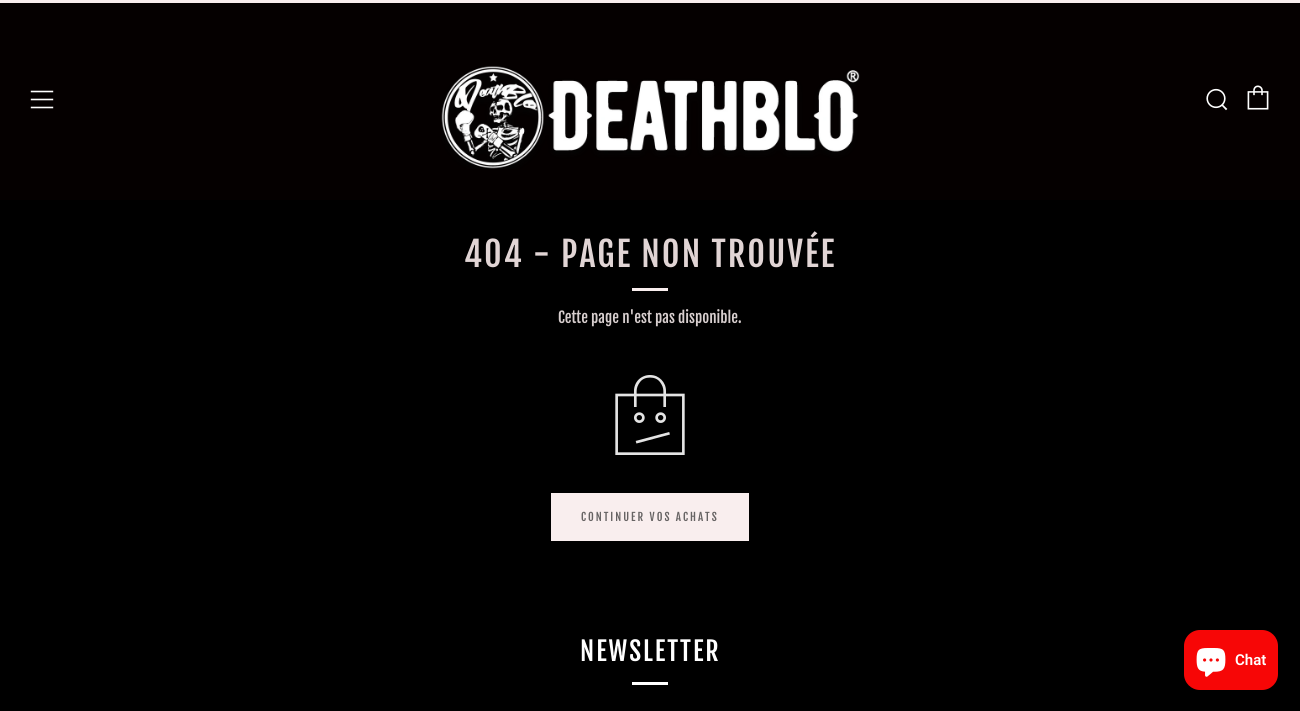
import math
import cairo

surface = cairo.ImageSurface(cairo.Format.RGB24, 1300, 711)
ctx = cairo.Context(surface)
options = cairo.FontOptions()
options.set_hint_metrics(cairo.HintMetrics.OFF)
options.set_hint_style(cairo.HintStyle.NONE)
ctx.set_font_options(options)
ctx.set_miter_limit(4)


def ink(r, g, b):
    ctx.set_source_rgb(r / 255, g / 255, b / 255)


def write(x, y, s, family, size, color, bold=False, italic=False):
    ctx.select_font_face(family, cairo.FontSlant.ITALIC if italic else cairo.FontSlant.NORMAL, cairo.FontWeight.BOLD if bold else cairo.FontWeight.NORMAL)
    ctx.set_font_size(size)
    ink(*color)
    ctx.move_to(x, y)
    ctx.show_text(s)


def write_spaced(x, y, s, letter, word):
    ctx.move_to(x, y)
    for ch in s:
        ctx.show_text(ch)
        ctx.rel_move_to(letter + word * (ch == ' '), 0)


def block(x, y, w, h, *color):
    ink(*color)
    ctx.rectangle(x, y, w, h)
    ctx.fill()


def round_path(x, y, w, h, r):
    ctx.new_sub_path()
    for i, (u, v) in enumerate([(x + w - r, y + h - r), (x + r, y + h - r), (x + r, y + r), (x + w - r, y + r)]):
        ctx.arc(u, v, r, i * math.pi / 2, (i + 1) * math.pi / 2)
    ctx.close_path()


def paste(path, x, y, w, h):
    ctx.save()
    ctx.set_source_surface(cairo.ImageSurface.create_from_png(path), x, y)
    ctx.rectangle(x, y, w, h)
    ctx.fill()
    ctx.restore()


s1 = dict(family="Fjalla One", size=15, color=(215, 206, 206))
s2 = dict(family="Roboto SemiBold", size=15, color=(255, 255, 255))

ink(0, 0, 0)
ctx.paint()
block(0, 3, 1300, 197, 5, 0, 0)
block(0, 0, 1300, 3, 249, 238, 238)
paste("pic1.png", 30, 90, 24, 19)
paste("pic2.png", 441, 66, 419, 103)
paste("pic3.png", 1206, 88, 22, 23)
paste("pic4.png", 1247, 85, 22, 25)
ctx.select_font_face("Fjalla One")
ctx.set_font_size(34)
ink(225, 213, 213)
write_spaced(464, 267, "404 - PAGE NON TROUVÉE", 2, 0)
block(632, 288, 36, 3, 249, 238, 238)
write(558, 323, "Cette page n'est pas disponible.", **s1)
paste("pic5.png", 615, 375, 70, 80)
block(551, 493, 198, 48, 249, 238, 238)
ctx.set_font_size(11)
ink(102, 99, 99)
write_spaced(581, 521, "CONTINUER VOS ACHATS", 2, 0)
ctx.set_font_size(26)
ink(255, 255, 255)
write_spaced(580, 661, "NEWSLETTER", 2, 0)
block(632, 682, 36, 3, 255, 255, 255)
ink(247, 6, 6)
round_path(1184, 630, 94, 60, 16)
ctx.fill()
paste("pic6.png", 1196, 648, 30, 29)
write(1235, 665, "Chat", **s2)
surface.write_to_png("screenshot.png")
